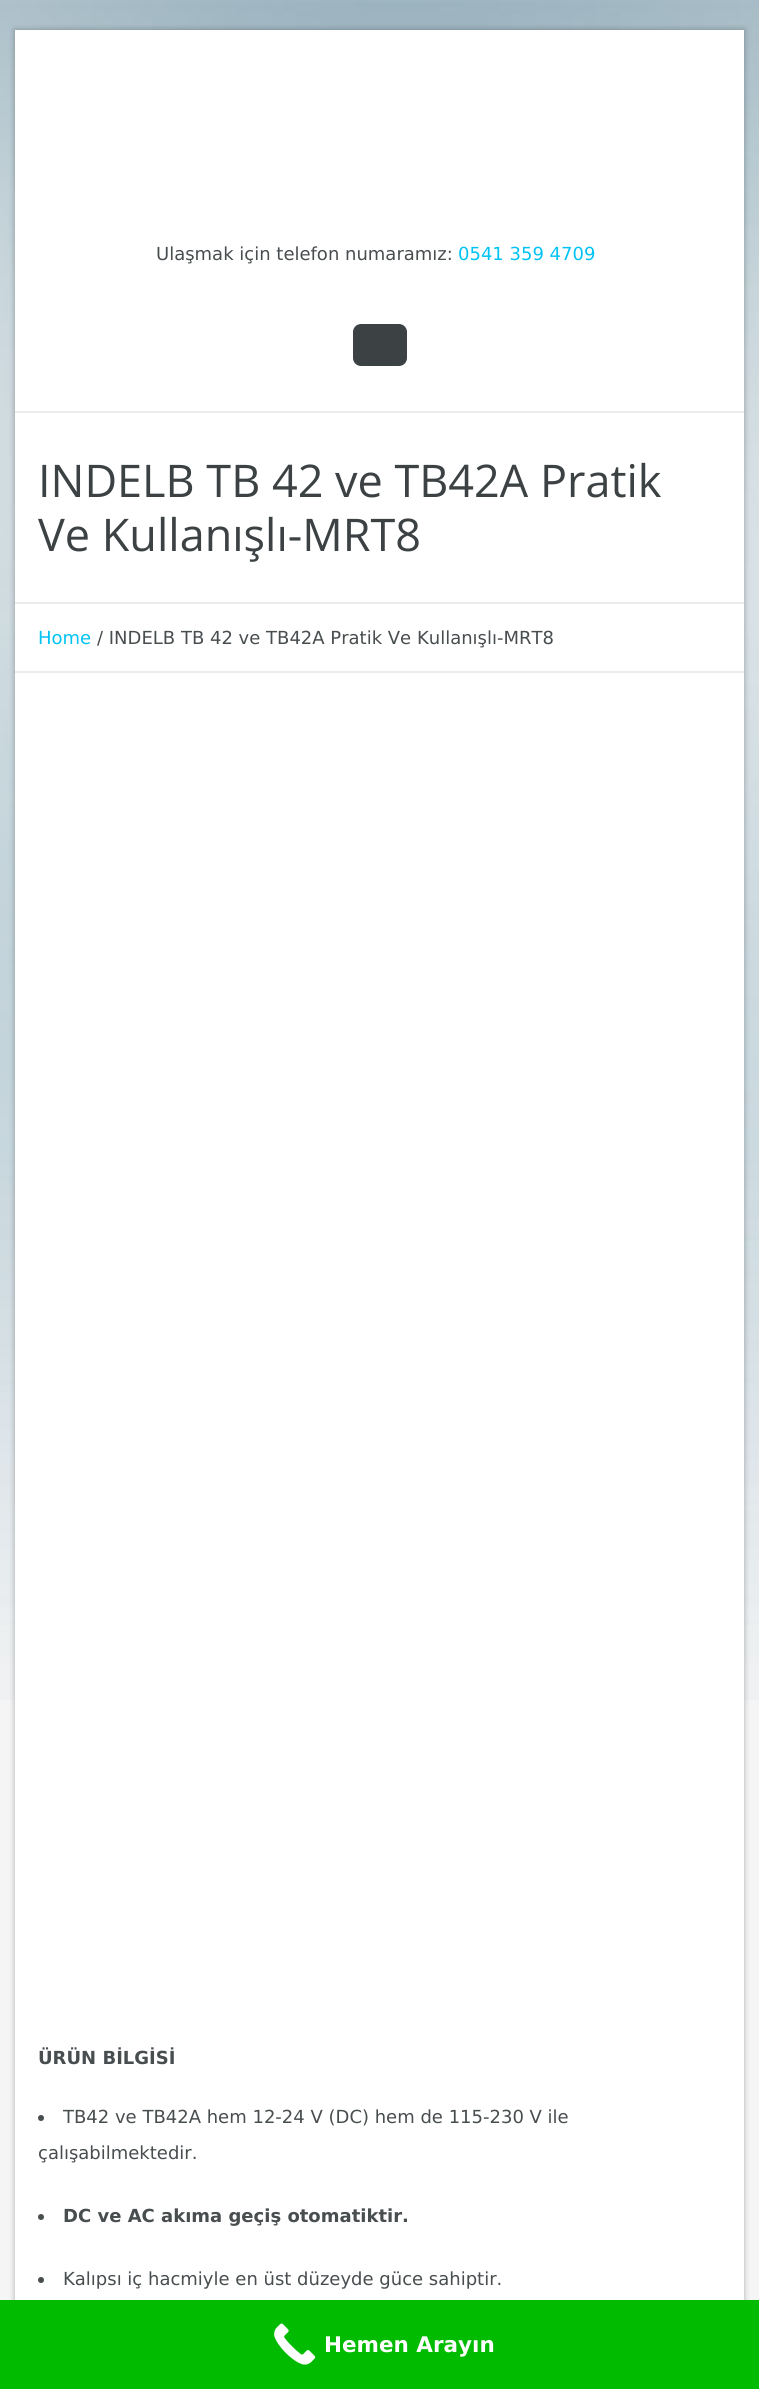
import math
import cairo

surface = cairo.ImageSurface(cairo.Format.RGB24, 759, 2389)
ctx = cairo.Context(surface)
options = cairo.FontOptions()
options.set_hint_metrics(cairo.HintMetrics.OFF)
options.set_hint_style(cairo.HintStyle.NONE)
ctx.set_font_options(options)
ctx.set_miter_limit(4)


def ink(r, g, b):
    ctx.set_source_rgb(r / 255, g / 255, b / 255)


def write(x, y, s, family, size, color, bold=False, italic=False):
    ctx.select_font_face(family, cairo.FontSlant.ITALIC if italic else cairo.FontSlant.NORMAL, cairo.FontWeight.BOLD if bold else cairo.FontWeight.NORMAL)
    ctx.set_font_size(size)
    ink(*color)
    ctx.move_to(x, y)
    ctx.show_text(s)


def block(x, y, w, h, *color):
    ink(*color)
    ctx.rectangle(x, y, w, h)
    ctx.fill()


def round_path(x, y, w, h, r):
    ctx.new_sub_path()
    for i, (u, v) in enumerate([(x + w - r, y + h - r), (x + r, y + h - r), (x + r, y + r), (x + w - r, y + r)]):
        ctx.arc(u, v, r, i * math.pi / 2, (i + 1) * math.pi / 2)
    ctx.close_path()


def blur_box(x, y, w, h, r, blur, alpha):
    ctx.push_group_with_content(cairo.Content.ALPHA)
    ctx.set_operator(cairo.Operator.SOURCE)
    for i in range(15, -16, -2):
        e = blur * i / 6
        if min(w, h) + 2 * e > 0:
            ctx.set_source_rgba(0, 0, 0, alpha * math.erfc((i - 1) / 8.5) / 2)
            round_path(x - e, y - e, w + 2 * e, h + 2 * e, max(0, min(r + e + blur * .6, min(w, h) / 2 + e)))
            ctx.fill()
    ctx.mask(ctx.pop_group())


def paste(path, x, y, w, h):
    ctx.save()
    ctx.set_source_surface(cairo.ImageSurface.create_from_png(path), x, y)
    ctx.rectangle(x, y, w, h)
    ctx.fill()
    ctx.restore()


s1 = dict(family="DejaVu Sans", size=18, color=(72, 77, 79))
s2 = dict(family="DejaVu Sans", size=18, color=(0, 195, 244))
s3 = dict(family="Open Sans", size=45, color=(60, 65, 67))
s4 = dict(family="DejaVu Sans", size=18, color=(72, 77, 79), bold=True)
s5 = dict(family="DejaVu Sans", size=21.5, color=(255, 255, 255), bold=True)

ink(245, 245, 245)
ctx.paint()
paste("pic1.png", 0, 0, 759, 1700)
ink(0, 0, 0)
blur_box(15, 30, 729, 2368, 0, 3, 0.3)
block(15, 30, 729, 2270, 255, 255, 255)
block(15, 411, 729, 2, 235, 236, 236)
write(156, 260, "Ulaşmak için telefon numaramız:", **s1)
write(458, 260, "0541 359 4709", **s2)
ink(60, 65, 67)
round_path(353, 324, 54, 42, 8)
ctx.fill()
block(15, 602, 729, 2, 235, 236, 236)
write(38, 497, "INDELB TB 42 ve TB42A Pratik", **s3)
write(38, 551, "Ve Kullanışlı-MRT8", **s3)
block(15, 671, 729, 2, 235, 236, 236)
write(38, 644, "Home", **s2)
write(97, 644, "/ INDELB TB 42 ve TB42A Pratik Ve Kullanışlı-MRT8", **s1)
write(38, 2064, "ÜRÜN BİLGİSİ", **s4)
ctx.new_path()
ctx.arc(41, 2118, 3, 0, 2 * math.pi)
ctx.fill()
write(63, 2123, "TB42 ve TB42A hem 12-24 V (DC) hem de 115-230 V ile", **s1)
write(38, 2159, "çalışabilmektedir.", **s1)
ctx.new_path()
ctx.arc(41, 2217, 3, 0, 2 * math.pi)
ctx.fill()
write(63, 2222, "DC ve AC akıma geçiş otomatiktir.", **s4)
ctx.new_path()
ctx.arc(41, 2280, 3, 0, 2 * math.pi)
ctx.fill()
write(63, 2285, "Kalıpsı iç hacmiyle en üst düzeyde güce sahiptir.", **s1)
block(0, 2300, 759, 89, 0, 187, 0)
paste("pic2.png", 274, 2323, 42, 42)
write(324, 2352, "Hemen Arayın", **s5)
surface.write_to_png("screenshot.png")
